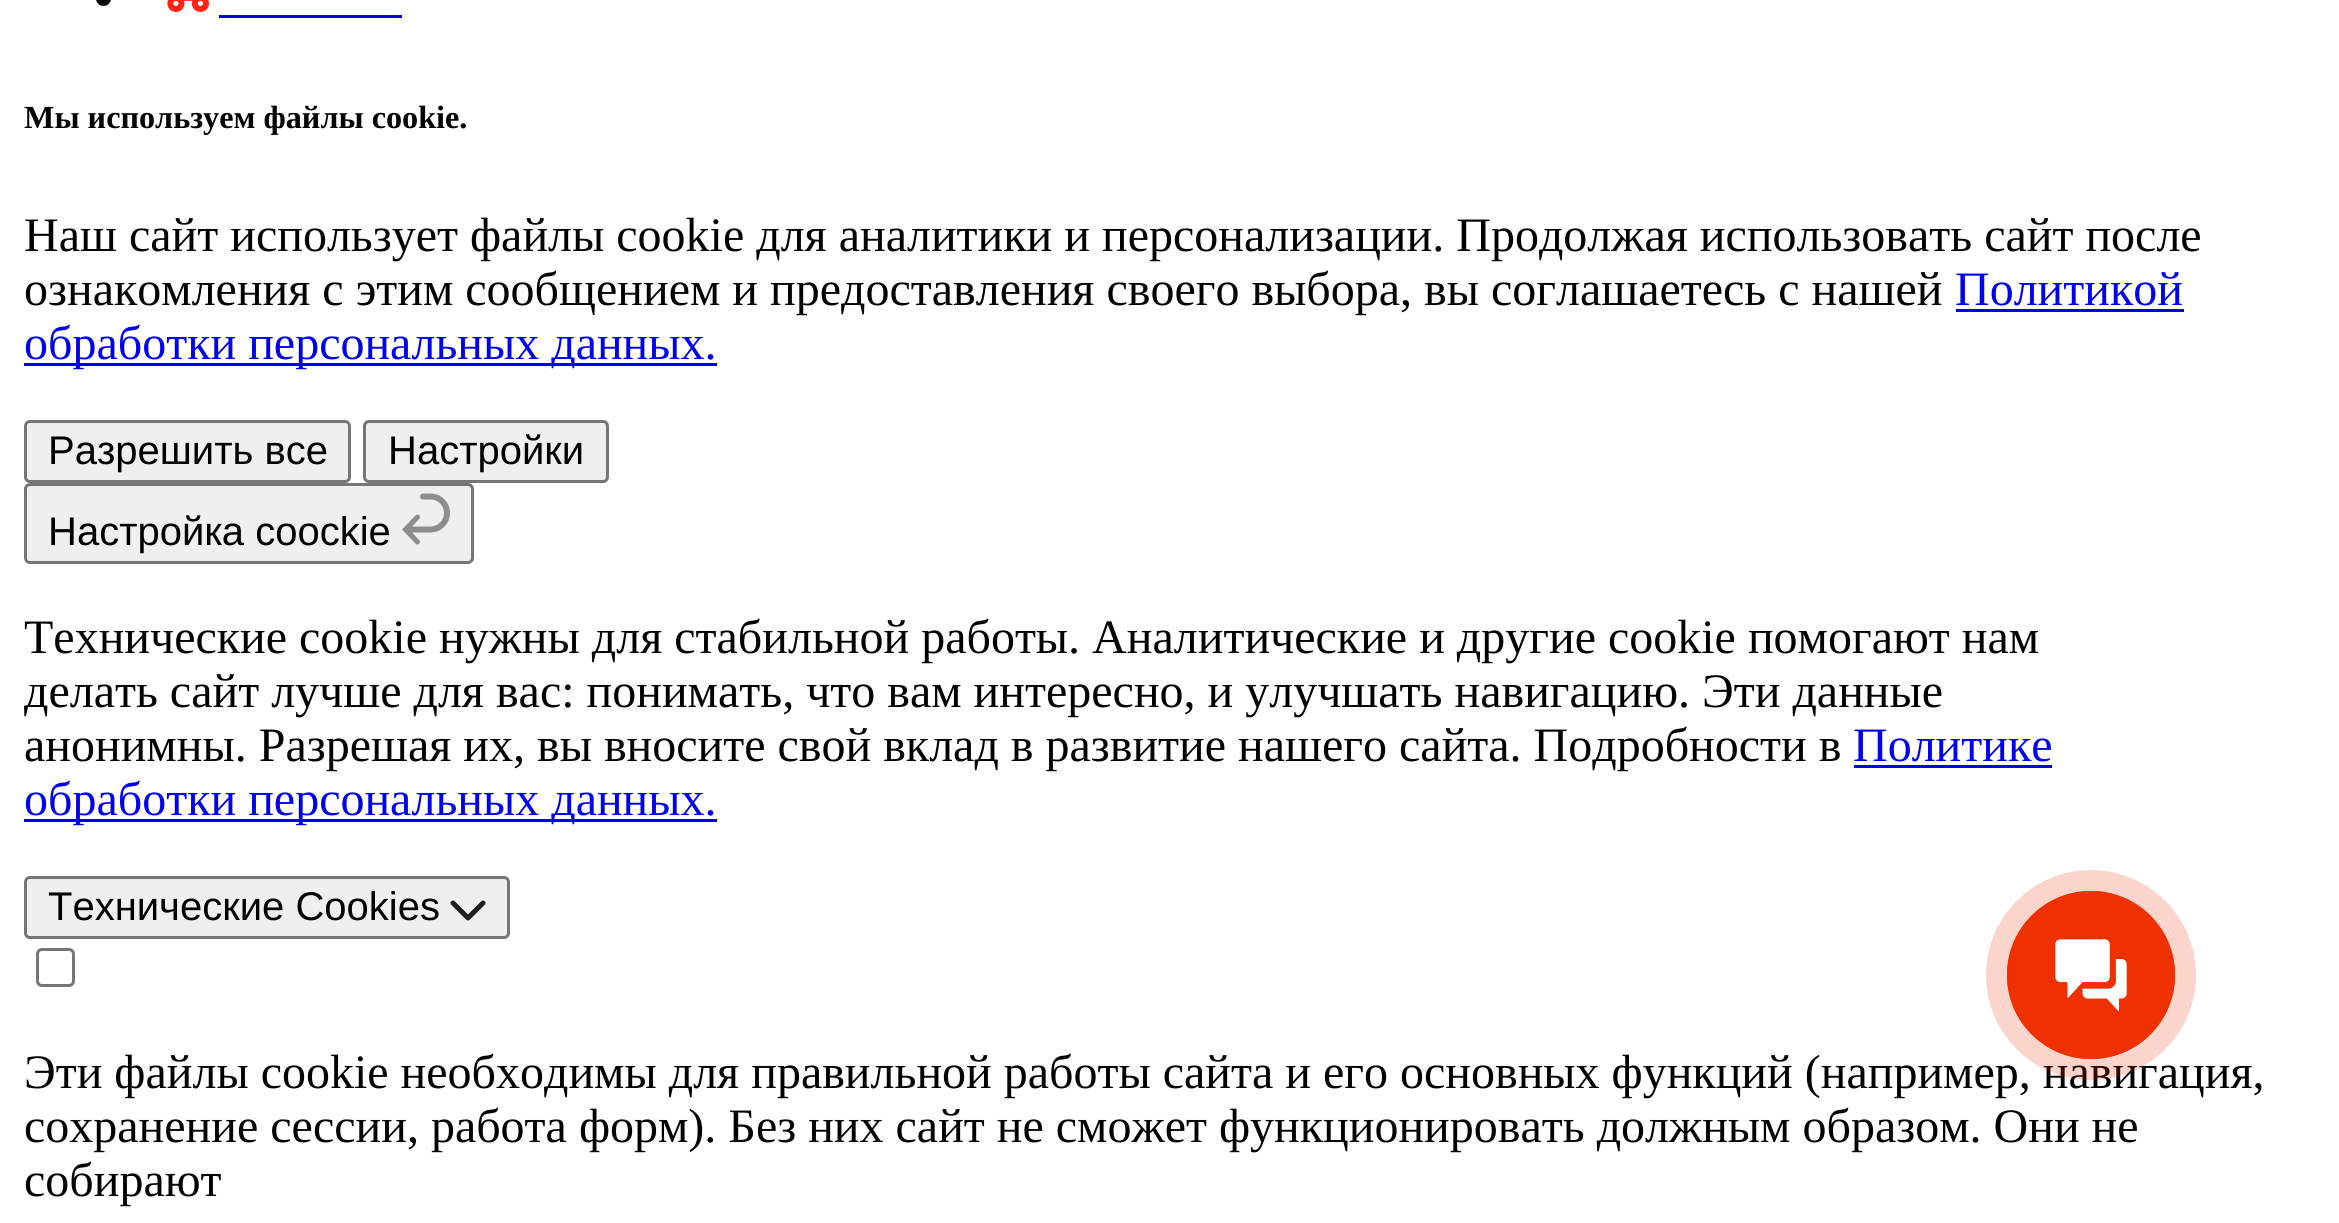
import math
import cairo

surface = cairo.ImageSurface(cairo.Format.RGB24, 2339, 1223)
ctx = cairo.Context(surface)
options = cairo.FontOptions()
options.set_hint_metrics(cairo.HintMetrics.OFF)
options.set_hint_style(cairo.HintStyle.NONE)
ctx.set_font_options(options)
ctx.set_miter_limit(4)


def ink(r, g, b):
    ctx.set_source_rgb(r / 255, g / 255, b / 255)


def write(x, y, s, family, size, color, bold=False, italic=False):
    ctx.select_font_face(family, cairo.FontSlant.ITALIC if italic else cairo.FontSlant.NORMAL, cairo.FontWeight.BOLD if bold else cairo.FontWeight.NORMAL)
    ctx.set_font_size(size)
    ink(*color)
    ctx.move_to(x, y)
    ctx.show_text(s)


def block(x, y, w, h, *color):
    ink(*color)
    ctx.rectangle(x, y, w, h)
    ctx.fill()


def round_path(x, y, w, h, r):
    ctx.new_sub_path()
    for i, (u, v) in enumerate([(x + w - r, y + h - r), (x + r, y + h - r), (x + r, y + r), (x + w - r, y + r)]):
        ctx.arc(u, v, r, i * math.pi / 2, (i + 1) * math.pi / 2)
    ctx.close_path()


def paste(path, x, y, w, h):
    ctx.save()
    ctx.set_source_surface(cairo.ImageSurface.create_from_png(path), x, y)
    ctx.rectangle(x, y, w, h)
    ctx.fill()
    ctx.restore()


s1 = dict(family="Liberation Serif", size=32.2, color=(0, 0, 0), bold=True)
s2 = dict(family="Liberation Serif", size=48, color=(0, 0, 0))
s3 = dict(family="Liberation Serif", size=48, color=(0, 0, 238))
s4 = dict(family="Liberation Sans", size=40, color=(0, 0, 0))

ink(255, 255, 255)
ctx.paint()
ink(0, 0, 0)
round_path(96, -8, 15, 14, 7.5)
ctx.fill()
paste("pic1.png", 167, 0, 42, 12)
block(219, 15, 183, 3, 0, 0, 238)
write(24, 128, "Мы используем файлы cookie.", **s1)
write(24, 251, "Наш сайт использует файлы cookie для аналитики и персонализации. Продолжая использовать сайт после", **s2)
write(24, 305, "ознакомления с этим сообщением и предоставления своего выбора, вы соглашаетесь с нашей", **s2)
write(1955, 305, "Политикой", **s3)
block(1956, 309, 228, 3, 0, 0, 238)
block(24, 363, 693, 3, 0, 0, 238)
write(24, 359, "обработки персональных данных.", **s3)
ink(239, 239, 239)
round_path(25.5, 421.5, 324, 60, 4.5)
ctx.fill_preserve()
ink(118, 118, 118)
ctx.set_line_width(3)
ctx.stroke()
write(48, 464, "Разрешить все", **s4)
ink(239, 239, 239)
round_path(364.5, 421.5, 243, 60, 4.5)
ctx.fill_preserve()
ink(118, 118, 118)
ctx.stroke()
write(388, 464, "Настройки", **s4)
ink(239, 239, 239)
round_path(25.5, 484.5, 447, 78, 4.5)
ctx.fill_preserve()
ink(118, 118, 118)
ctx.stroke()
write(48, 545, "Настройка coockie", **s4)
paste("pic2.png", 402, 493, 48, 52)
write(24, 653, "Технические cookie нужны для стабильной работы. Аналитические и другие cookie помогают нам", **s2)
write(24, 707, "делать сайт лучше для вас: понимать, что вам интересно, и улучшать навигацию. Эти данные", **s2)
write(24, 761, "анонимны. Разрешая их, вы вносите свой вклад в развитие нашего сайта. Подробности в", **s2)
write(1853, 761, "Политике", **s3)
block(1854, 765, 198, 3, 0, 0, 238)
block(24, 819, 693, 3, 0, 0, 238)
write(24, 815, "обработки персональных данных.", **s3)
ink(239, 239, 239)
round_path(25.5, 877.5, 483, 60, 4.5)
ctx.fill_preserve()
ink(118, 118, 118)
ctx.stroke()
write(48, 920, "Технические Cookies", **s4)
paste("pic3.png", 450, 900, 36, 21)
round_path(37.5, 949.5, 36, 36, 4.5)
ink(118, 118, 118)
ctx.stroke()
write(24, 1088, "Эти файлы cookie необходимы для правильной работы сайта и его основных функций (например, навигация,", **s2)
write(24, 1142, "сохранение сессии, работа форм). Без них сайт не сможет функционировать должным образом. Они не", **s2)
write(24, 1196, "собирают", **s2)
ctx.set_source_rgba(0.937, 0.188, 0, 0.2)
ctx.new_path()
ctx.arc(2091, 975, 105, 0, 2 * math.pi)
ctx.fill()
ctx.arc(2091, 975, 83, 0, 2 * math.pi)
ink(239, 48, 0)
ctx.set_line_width(2)
ctx.stroke()
ctx.arc(2091, 975, 84, 0, 2 * math.pi)
ctx.fill()
paste("pic4.png", 2055, 939, 72, 72)
surface.write_to_png("screenshot.png")
